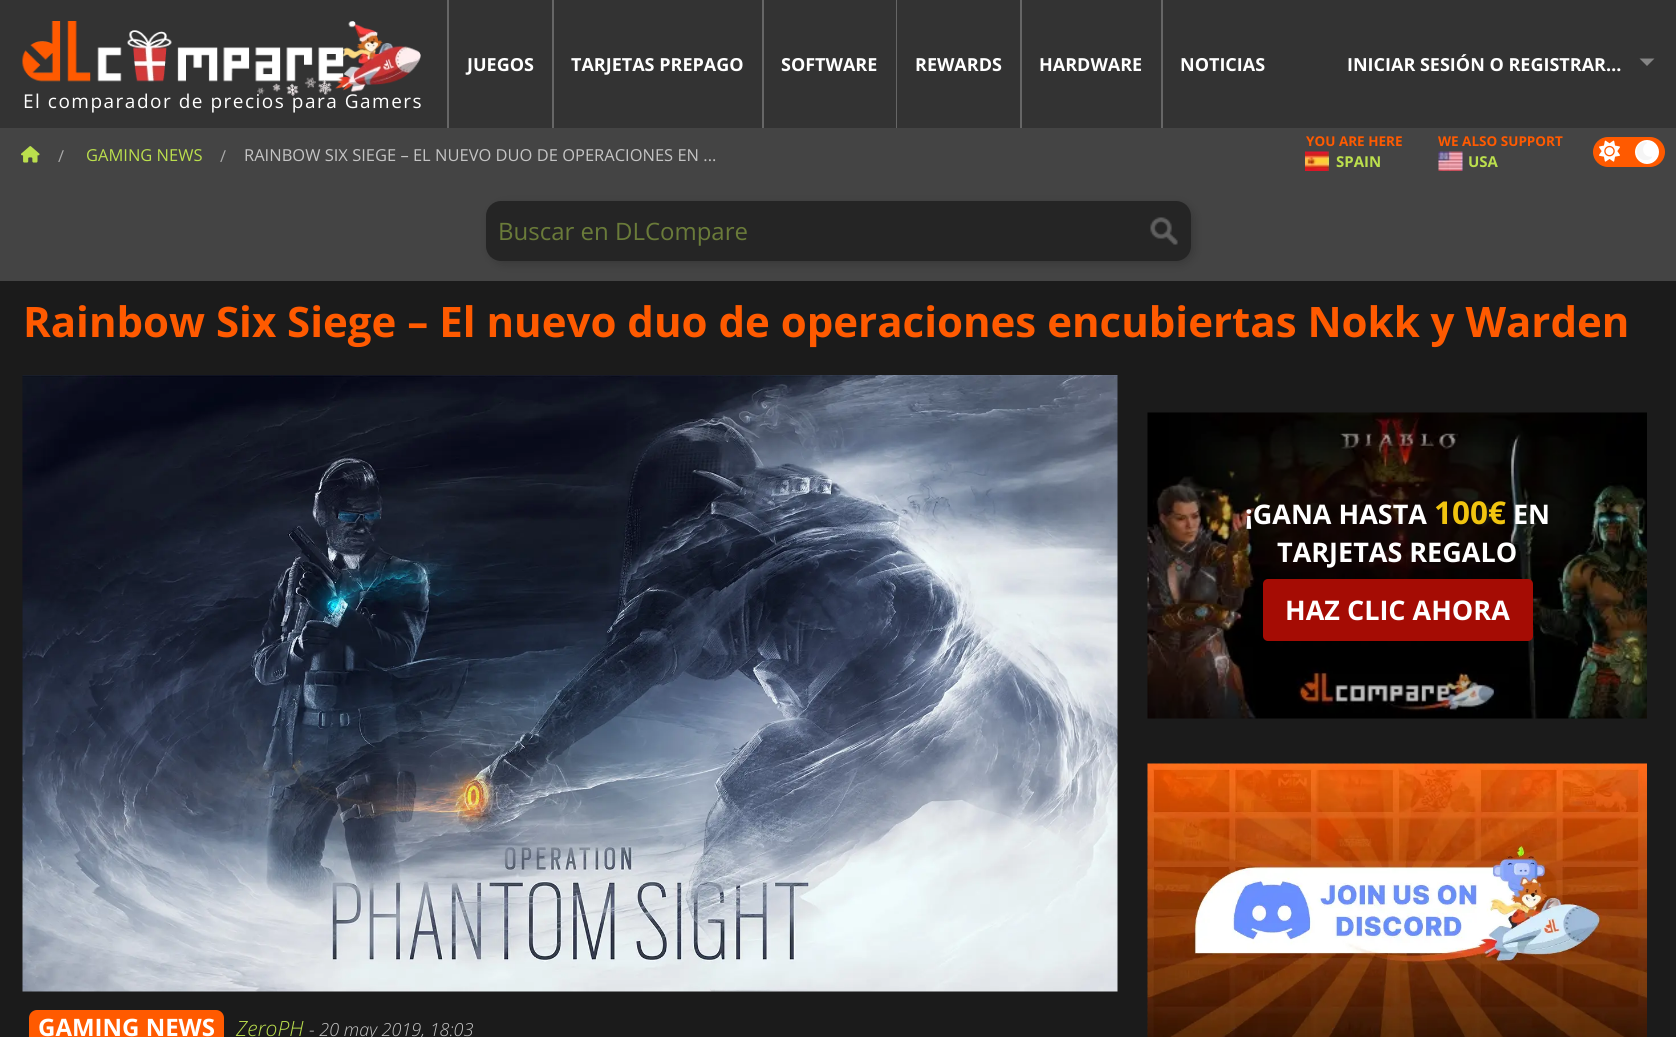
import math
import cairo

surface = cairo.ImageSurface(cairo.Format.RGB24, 1676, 1037)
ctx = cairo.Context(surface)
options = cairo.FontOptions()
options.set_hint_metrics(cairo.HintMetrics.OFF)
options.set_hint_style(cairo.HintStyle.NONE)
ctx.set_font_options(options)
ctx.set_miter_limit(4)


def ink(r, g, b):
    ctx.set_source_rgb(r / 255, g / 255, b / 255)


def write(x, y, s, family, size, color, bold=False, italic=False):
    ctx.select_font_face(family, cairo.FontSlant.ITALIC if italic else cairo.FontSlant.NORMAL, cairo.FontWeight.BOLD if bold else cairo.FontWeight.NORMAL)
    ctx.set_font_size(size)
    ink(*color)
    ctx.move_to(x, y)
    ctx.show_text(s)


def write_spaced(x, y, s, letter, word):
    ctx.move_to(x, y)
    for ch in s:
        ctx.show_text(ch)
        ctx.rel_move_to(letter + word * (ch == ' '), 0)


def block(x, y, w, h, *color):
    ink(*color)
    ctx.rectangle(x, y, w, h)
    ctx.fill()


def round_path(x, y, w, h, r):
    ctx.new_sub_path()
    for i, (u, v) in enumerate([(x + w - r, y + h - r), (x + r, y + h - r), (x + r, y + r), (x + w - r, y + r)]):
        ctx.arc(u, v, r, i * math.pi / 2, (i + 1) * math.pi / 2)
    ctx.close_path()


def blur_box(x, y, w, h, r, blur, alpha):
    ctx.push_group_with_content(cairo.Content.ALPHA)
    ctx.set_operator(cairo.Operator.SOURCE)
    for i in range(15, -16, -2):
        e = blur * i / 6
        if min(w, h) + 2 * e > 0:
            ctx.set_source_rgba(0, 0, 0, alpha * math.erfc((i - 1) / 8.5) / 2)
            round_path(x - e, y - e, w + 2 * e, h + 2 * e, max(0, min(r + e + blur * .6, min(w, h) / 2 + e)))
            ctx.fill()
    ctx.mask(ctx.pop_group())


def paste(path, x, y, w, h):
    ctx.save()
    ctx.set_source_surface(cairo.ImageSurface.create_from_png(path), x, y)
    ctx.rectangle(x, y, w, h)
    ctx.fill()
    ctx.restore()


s1 = dict(family="Open Sans", size=18, color=(255, 255, 255), bold=True)
s2 = dict(family="Open Sans", size=16.5, color=(170, 170, 170))
s3 = dict(family="Open Sans", size=16.5, color=(187, 223, 77))
s4 = dict(family="Open Sans", size=16.5, color=(196, 196, 196))
s5 = dict(family="Open Sans", size=13.5, color=(255, 90, 0), bold=True)
s6 = dict(family="Open Sans", size=15, color=(187, 223, 77), bold=True)
s7 = dict(family="Open Sans", size=24, color=(106, 123, 57))
s8 = dict(family="Open Sans", size=42, color=(255, 90, 0), bold=True)
s9 = dict(family="Open Sans", size=27, color=(255, 255, 255), bold=True)
s10 = dict(family="Open Sans", size=31.5, color=(241, 196, 15), bold=True)
s11 = dict(family="Open Sans", size=24, color=(255, 255, 255), bold=True)
s12 = dict(family="Open Sans Light", size=21, color=(187, 223, 77), italic=True)
s13 = dict(family="Open Sans Light", size=18, color=(196, 196, 196), italic=True)

ink(68, 68, 68)
ctx.paint()
block(0, 0, 1676, 128, 51, 51, 51)
block(447, 0, 2, 128, 102, 102, 102)
write(467, 71, "JUEGOS", **s1)
block(552, 0, 2, 128, 102, 102, 102)
write(571, 71, "TARJETAS PREPAGO", **s1)
block(762, 0, 2, 128, 102, 102, 102)
write(781, 71, "SOFTWARE", **s1)
block(896, 0, 1, 128, 102, 102, 102)
write(915, 71, "REWARDS", **s1)
block(1020, 0, 2, 128, 102, 102, 102)
write(1039, 71, "HARDWARE", **s1)
block(1161, 0, 2, 128, 102, 102, 102)
write(1180, 71, "NOTICIAS", **s1)
write(1347, 71, "INICIAR SESIÓN O REGISTRAR…", **s1)
ink(133, 133, 133)
ctx.new_path()
ctx.move_to(1639.5, 58.5)
ctx.line_to(1654.5, 58.5)
ctx.line_to(1647, 66)
ctx.close_path()
ctx.fill()
paste("pic1.png", 22, 21, 399, 75)
ctx.select_font_face("Open Sans")
ctx.set_font_size(19)
ink(255, 255, 255)
write_spaced(23, 108, "El comparador de precios para Gamers", 1.5, 0)
paste("pic2.png", 21, 146, 19, 17)
write(58, 162, "/", **s2)
write(86, 161, "GAMING NEWS", **s3)
write(220, 162, "/", **s2)
write(244, 161, "RAINBOW SIX SIEGE – EL NUEVO DUO DE OPERACIONES EN ...", **s4)
write(1306, 146, "YOU ARE HERE", **s5)
paste("pic3.png", 1305, 151, 24, 20)
write(1336, 167, "SPAIN", **s6)
write(1438, 146, "WE ALSO SUPPORT", **s5)
paste("pic4.png", 1438, 151, 25, 20)
write(1468, 167, "USA", **s6)
ink(255, 90, 0)
round_path(1593, 137, 72, 30, 15)
ctx.fill()
paste("pic5.png", 1599, 140, 21, 22)
ink(255, 255, 255)
ctx.arc(1647, 152, 12, 0, 2 * math.pi)
ctx.fill()
paste("pic6.png", 1636, 142, 16, 18)
ink(7, 7, 7)
blur_box(489, 204, 705, 60, 15, 4.5, 0.2)
ink(37, 37, 37)
round_path(486, 201, 705, 60, 15)
ctx.fill()
paste("pic7.png", 1150, 217, 28, 28)
write(498, 240, "Buscar en DLCompare", **s7)
block(0, 281, 1676, 756, 27, 27, 27)
write(23, 337, "Rainbow Six Siege – El nuevo duo de operaciones encubiertas Nokk y Warden", **s8)
paste("pic8.png", 1147, 412, 500, 307)
write(1245, 524, "¡GANA HASTA", **s9)
write(1434, 524, "100€", **s10)
write(1513, 524, "EN", **s9)
write(1277, 562, "TARJETAS REGALO", **s9)
ink(165, 12, 4)
round_path(1263, 579, 270, 62, 5)
ctx.fill()
write(1285, 620, "HAZ CLIC AHORA", **s9)
paste("pic9.png", 1147, 763, 500, 272)
paste("pic10.png", 1147, 763, 500, 274)
paste("pic11.png", 22, 375, 1096, 617)
ink(255, 90, 0)
round_path(29, 1010, 195, 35, 8)
ctx.fill()
write(38, 1036, "GAMING NEWS", **s11)
write(236, 1036, "ZeroPH", **s12)
write(309, 1036, "- 20 may 2019, 18:03", **s13)
surface.write_to_png("screenshot.png")
